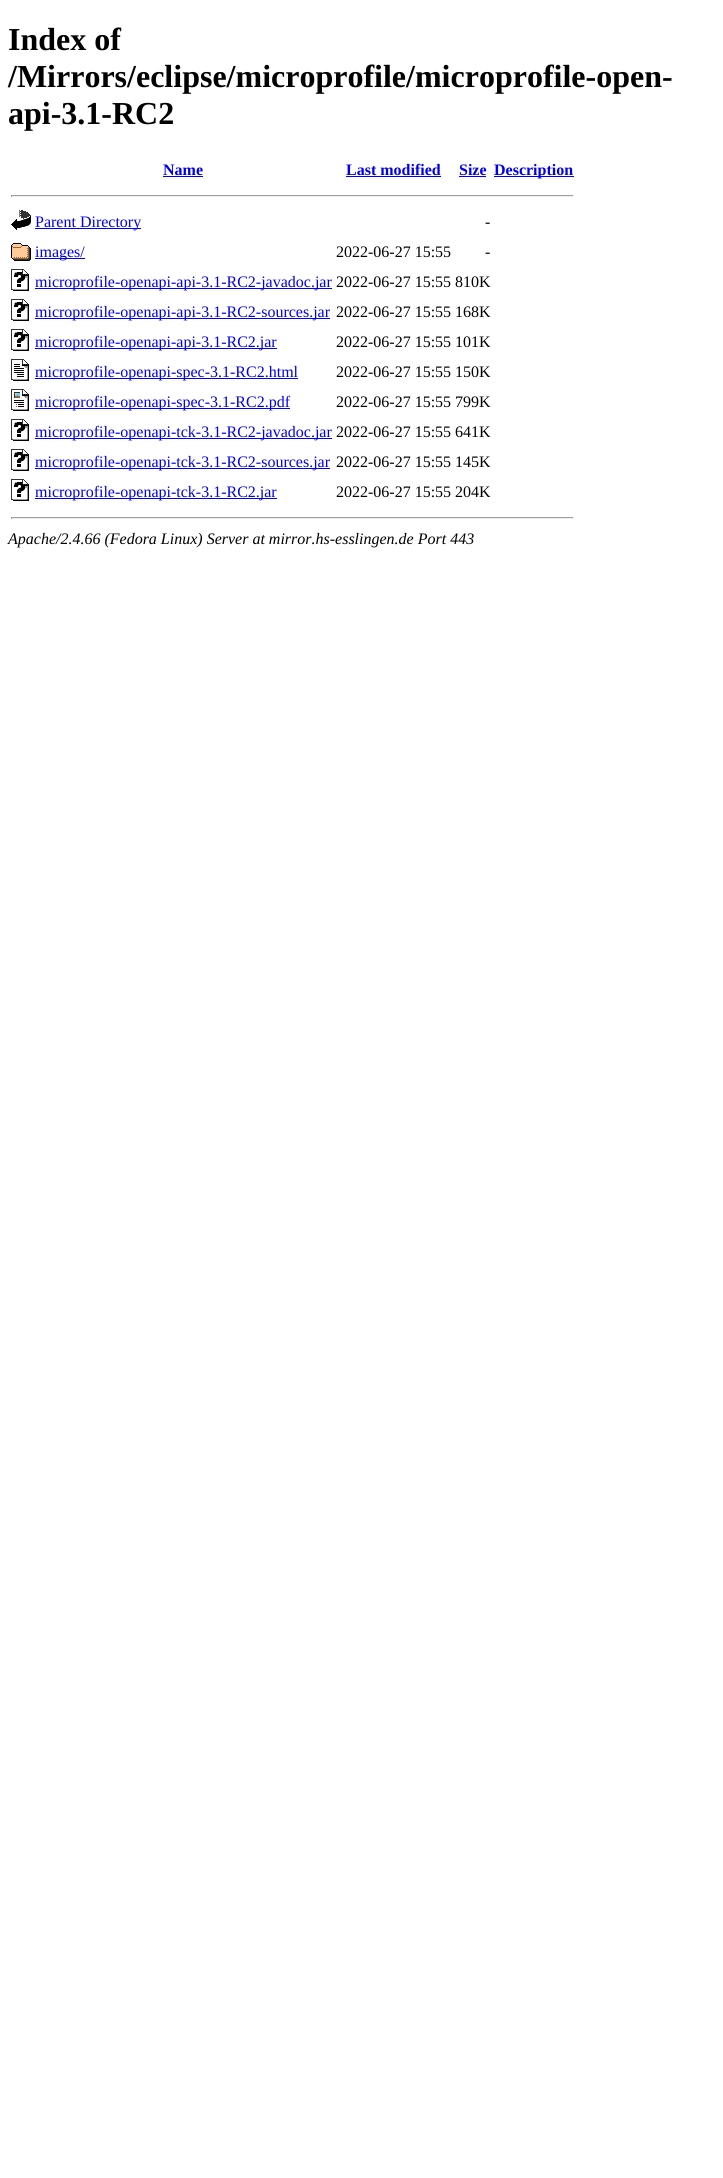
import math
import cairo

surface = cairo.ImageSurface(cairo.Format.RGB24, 723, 2178)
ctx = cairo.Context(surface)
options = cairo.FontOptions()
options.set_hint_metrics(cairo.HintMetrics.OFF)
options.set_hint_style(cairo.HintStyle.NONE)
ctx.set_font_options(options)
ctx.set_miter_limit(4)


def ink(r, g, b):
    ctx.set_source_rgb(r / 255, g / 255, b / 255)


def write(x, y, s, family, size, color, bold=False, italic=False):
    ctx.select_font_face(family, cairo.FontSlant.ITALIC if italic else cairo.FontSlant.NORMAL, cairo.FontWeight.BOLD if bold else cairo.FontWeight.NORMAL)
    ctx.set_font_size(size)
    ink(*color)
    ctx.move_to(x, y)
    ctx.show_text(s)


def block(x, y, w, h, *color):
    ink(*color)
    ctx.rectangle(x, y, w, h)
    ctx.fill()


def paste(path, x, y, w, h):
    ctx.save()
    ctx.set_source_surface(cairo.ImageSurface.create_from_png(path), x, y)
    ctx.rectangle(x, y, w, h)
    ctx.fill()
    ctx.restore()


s1 = dict(family="Liberation Serif", size=32, color=(0, 0, 0), bold=True)
s2 = dict(family="Liberation Serif", size=16, color=(0, 0, 238), bold=True)
s3 = dict(family="Liberation Serif", size=16, color=(0, 0, 238))
s4 = dict(family="Liberation Serif", size=16, color=(0, 0, 0))
s5 = dict(family="Liberation Serif", size=16, color=(0, 0, 0), italic=True)

ink(255, 255, 255)
ctx.paint()
write(8, 50, "Index of", **s1)
write(8, 87, "/Mirrors/eclipse/microprofile/microprofile-open-", **s1)
write(8, 124, "api-3.1-RC2", **s1)
write(163, 175, "Name", **s2)
block(163, 176, 40, 1, 0, 0, 238)
write(346, 175, "Last modified", **s2)
block(346, 176, 95, 1, 0, 0, 238)
write(459, 175, "Size", **s2)
block(459, 176, 27, 1, 0, 0, 238)
block(494, 176, 80, 1, 0, 0, 238)
write(494, 175, "Description", **s2)
block(11, 195, 563, 1, 159, 159, 159)
block(573, 195, 1, 2, 238, 238, 238)
block(11, 196, 563, 1, 238, 238, 238)
block(11, 195, 1, 2, 159, 159, 159)
paste("pic1.png", 11, 210, 20, 20)
block(35, 228, 106, 1, 0, 0, 238)
write(35, 227, "Parent Directory", **s3)
write(485, 227, "-", **s4)
paste("pic2.png", 11, 243, 20, 18)
block(35, 258, 50, 1, 0, 0, 238)
write(35, 257, "images/", **s3)
write(336, 257, "2022-06-27 15:55", **s4)
write(485, 257, "-", **s4)
paste("pic3.png", 11, 269, 18, 22)
block(35, 288, 297, 1, 0, 0, 238)
write(35, 287, "microprofile-openapi-api-3.1-RC2-javadoc.jar", **s3)
write(336, 287, "2022-06-27 15:55 810K", **s4)
paste("pic3.png", 11, 299, 18, 22)
block(35, 318, 295, 1, 0, 0, 238)
write(35, 317, "microprofile-openapi-api-3.1-RC2-sources.jar", **s3)
write(336, 317, "2022-06-27 15:55 168K", **s4)
paste("pic3.png", 11, 329, 18, 22)
block(35, 348, 242, 1, 0, 0, 238)
write(35, 347, "microprofile-openapi-api-3.1-RC2.jar", **s3)
write(336, 347, "2022-06-27 15:55 101K", **s4)
paste("pic4.png", 11, 359, 18, 22)
block(35, 378, 263, 1, 0, 0, 238)
write(35, 377, "microprofile-openapi-spec-3.1-RC2.html", **s3)
write(336, 377, "2022-06-27 15:55 150K", **s4)
paste("pic5.png", 11, 389, 18, 22)
block(35, 408, 255, 1, 0, 0, 238)
write(35, 407, "microprofile-openapi-spec-3.1-RC2.pdf", **s3)
write(336, 407, "2022-06-27 15:55 799K", **s4)
paste("pic3.png", 11, 419, 18, 22)
block(35, 438, 297, 1, 0, 0, 238)
write(35, 437, "microprofile-openapi-tck-3.1-RC2-javadoc.jar", **s3)
write(336, 437, "2022-06-27 15:55 641K", **s4)
paste("pic3.png", 11, 449, 18, 22)
block(35, 468, 295, 1, 0, 0, 238)
write(35, 467, "microprofile-openapi-tck-3.1-RC2-sources.jar", **s3)
write(336, 467, "2022-06-27 15:55 145K", **s4)
paste("pic3.png", 11, 479, 18, 22)
block(35, 498, 242, 1, 0, 0, 238)
write(35, 497, "microprofile-openapi-tck-3.1-RC2.jar", **s3)
write(336, 497, "2022-06-27 15:55 204K", **s4)
block(11, 517, 563, 1, 159, 159, 159)
block(573, 517, 1, 2, 238, 238, 238)
block(11, 518, 563, 1, 238, 238, 238)
block(11, 517, 1, 2, 159, 159, 159)
write(8, 544, "Apache/2.4.66 (Fedora Linux) Server at mirror.hs-esslingen.de Port 443", **s5)
surface.write_to_png("screenshot.png")
